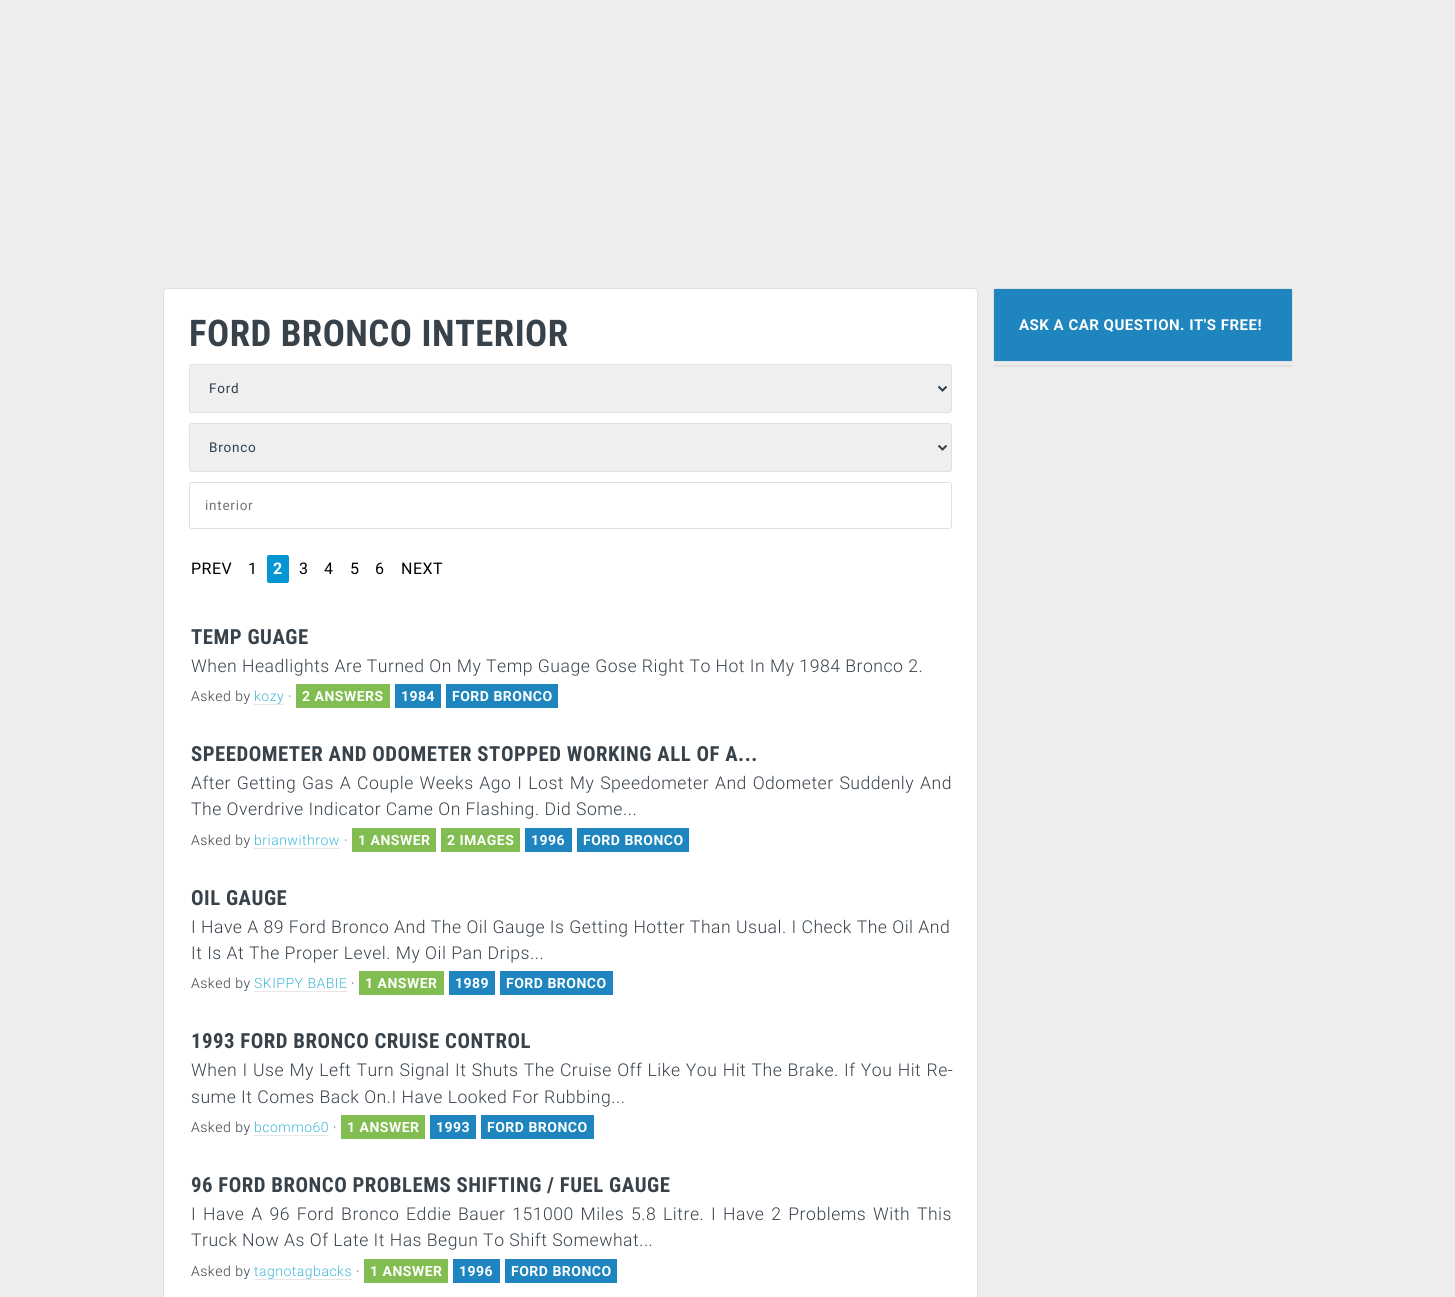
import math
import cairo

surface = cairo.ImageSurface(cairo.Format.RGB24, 1455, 1297)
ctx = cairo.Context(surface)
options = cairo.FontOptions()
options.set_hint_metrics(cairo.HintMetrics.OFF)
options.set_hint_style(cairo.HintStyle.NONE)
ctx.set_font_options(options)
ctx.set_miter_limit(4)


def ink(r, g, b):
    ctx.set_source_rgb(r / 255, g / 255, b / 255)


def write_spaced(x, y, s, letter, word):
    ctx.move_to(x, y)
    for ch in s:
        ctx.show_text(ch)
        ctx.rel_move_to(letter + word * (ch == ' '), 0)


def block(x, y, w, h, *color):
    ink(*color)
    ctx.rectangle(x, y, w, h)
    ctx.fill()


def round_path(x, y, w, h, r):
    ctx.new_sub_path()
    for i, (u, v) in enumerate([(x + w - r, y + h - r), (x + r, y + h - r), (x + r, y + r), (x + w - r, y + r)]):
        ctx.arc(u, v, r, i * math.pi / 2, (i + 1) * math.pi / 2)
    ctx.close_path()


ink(237, 237, 237)
ctx.paint()
ink(255, 255, 255)
round_path(163.5, 288.5, 814, 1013, 3.5)
ctx.fill_preserve()
ink(224, 224, 224)
ctx.set_line_width(1)
ctx.stroke()
ctx.select_font_face("Roboto Condensed", cairo.FontSlant.NORMAL, cairo.FontWeight.BOLD)
ctx.set_font_size(36.75)
ink(56, 66, 75)
write_spaced(189, 346, "FORD BRONCO INTERIOR", 0.5, 0)
ink(239, 239, 239)
round_path(189.5, 364.5, 762, 48, 2.5)
ctx.fill_preserve()
ink(224, 224, 224)
ctx.stroke()
ctx.new_path()
ctx.move_to(938.5, 386.5)
ctx.line_to(942.5, 390.5)
ctx.line_to(946.5, 386.5)
ink(44, 62, 80)
ctx.set_line_width(2)
ctx.stroke()
ctx.select_font_face("Roboto")
ctx.set_font_size(13.5)
write_spaced(209, 393, "Ford", 0.75, 0)
ink(239, 239, 239)
round_path(189.5, 423.5, 762, 48, 2.5)
ctx.fill_preserve()
ink(224, 224, 224)
ctx.set_line_width(1)
ctx.stroke()
ctx.new_path()
ctx.move_to(938.5, 445.5)
ctx.line_to(942.5, 449.5)
ctx.line_to(946.5, 445.5)
ink(44, 62, 80)
ctx.set_line_width(2)
ctx.stroke()
write_spaced(209, 452, "Bronco", 0.75, 0)
round_path(189.5, 482.5, 762, 46, 2.5)
ink(224, 224, 224)
ctx.set_line_width(1)
ctx.stroke()
ink(117, 117, 117)
write_spaced(205, 510, "interior", 0.75, 0)
ctx.set_font_size(16)
ink(0, 0, 0)
write_spaced(191, 574, "PREV", 0.5, 0)
write_spaced(248, 574, "1", 0.5, 0)
ink(3, 149, 212)
round_path(267, 555, 22, 28, 2)
ctx.fill()
ctx.select_font_face("Roboto", cairo.FontSlant.NORMAL, cairo.FontWeight.BOLD)
ink(255, 255, 255)
write_spaced(273, 574, "2", 0.5, 0)
ctx.select_font_face("Roboto")
ink(0, 0, 0)
write_spaced(299, 574, "3", 0.5, 0)
write_spaced(324, 574, "4", 0.5, 0)
write_spaced(350, 574, "5", 0.5, 0)
write_spaced(375, 574, "6", 0.5, 0)
write_spaced(401, 574, "NEXT", 0.5, 0)
ctx.select_font_face("Roboto Condensed", cairo.FontSlant.NORMAL, cairo.FontWeight.BOLD)
ctx.set_font_size(20.8)
ink(56, 66, 75)
write_spaced(191, 644, "TEMP GUAGE", 0.5, 0)
ctx.select_font_face("Roboto Light")
ctx.set_font_size(17.6)
write_spaced(191, 672, "When Headlights Are Turned On My Temp Guage Gose Right To Hot In My 1984 Bronco 2.", 0.5, 0)
ctx.set_font_size(14)
write_spaced(191, 701, "Asked by", 0.5, 0)
ink(65, 183, 216)
write_spaced(254, 701, "kozy", 0.5, 0)
block(254, 704, 30, 1, 230, 230, 230)
ink(56, 66, 75)
write_spaced(288, 701, "·", 0.5, 0)
block(296, 684, 94, 24, 129, 189, 80)
ctx.select_font_face("Roboto", cairo.FontSlant.NORMAL, cairo.FontWeight.BOLD)
ink(255, 255, 255)
write_spaced(302, 701, "2 ANSWERS", 0.5, 0)
block(395, 684, 46, 24, 30, 133, 191)
ink(255, 255, 255)
write_spaced(401, 701, "1984", 0.5, 0)
block(446, 684, 112, 24, 30, 133, 191)
ink(255, 255, 255)
write_spaced(452, 701, "FORD BRONCO", 0.5, 0)
ctx.select_font_face("Roboto Condensed", cairo.FontSlant.NORMAL, cairo.FontWeight.BOLD)
ctx.set_font_size(20.8)
ink(56, 66, 75)
write_spaced(191, 761, "SPEEDOMETER AND ODOMETER STOPPED WORKING ALL OF A...", 0.5, 0)
ctx.select_font_face("Roboto Light")
ctx.set_font_size(17.6)
write_spaced(191, 789, "After Getting Gas A Couple Weeks Ago I Lost My Speedometer And Odometer Suddenly And", 0.5, 1)
write_spaced(191, 815, "The Overdrive Indicator Came On Flashing. Did Some...", 0.5, 0)
ctx.set_font_size(14)
write_spaced(191, 845, "Asked by", 0.5, 0)
ink(65, 183, 216)
write_spaced(254, 845, "brianwithrow", 0.5, 0)
block(254, 848, 86, 1, 230, 230, 230)
ink(56, 66, 75)
write_spaced(344, 845, "·", 0.5, 0)
block(352, 828, 84, 24, 129, 189, 80)
ctx.select_font_face("Roboto", cairo.FontSlant.NORMAL, cairo.FontWeight.BOLD)
ink(255, 255, 255)
write_spaced(358, 845, "1 ANSWER", 0.5, 0)
block(441, 828, 79, 24, 129, 189, 80)
ink(255, 255, 255)
write_spaced(447, 845, "2 IMAGES", 0.5, 0)
block(525, 828, 47, 24, 30, 133, 191)
ink(255, 255, 255)
write_spaced(531, 845, "1996", 0.5, 0)
block(577, 828, 112, 24, 30, 133, 191)
ink(255, 255, 255)
write_spaced(583, 845, "FORD BRONCO", 0.5, 0)
ctx.select_font_face("Roboto Condensed", cairo.FontSlant.NORMAL, cairo.FontWeight.BOLD)
ctx.set_font_size(20.8)
ink(56, 66, 75)
write_spaced(191, 905, "OIL GAUGE", 0.5, 0)
ctx.select_font_face("Roboto Light")
ctx.set_font_size(17.6)
write_spaced(191, 933, "I Have A 89 Ford Bronco And The Oil Gauge Is Getting Hotter Than Usual. I Check The Oil And", 0.5, 0)
write_spaced(191, 959, "It Is At The Proper Level. My Oil Pan Drips...", 0.5, 0)
ctx.set_font_size(14)
write_spaced(191, 988, "Asked by", 0.5, 0)
ink(65, 183, 216)
write_spaced(254, 988, "SKIPPY BABIE", 0.5, 0)
block(254, 991, 94, 1, 230, 230, 230)
ink(56, 66, 75)
write_spaced(351, 988, "·", 0.5, 0)
block(359, 971, 85, 24, 129, 189, 80)
ctx.select_font_face("Roboto", cairo.FontSlant.NORMAL, cairo.FontWeight.BOLD)
ink(255, 255, 255)
write_spaced(365, 988, "1 ANSWER", 0.5, 0)
block(449, 971, 46, 24, 30, 133, 191)
ink(255, 255, 255)
write_spaced(455, 988, "1989", 0.5, 0)
block(500, 971, 113, 24, 30, 133, 191)
ink(255, 255, 255)
write_spaced(506, 988, "FORD BRONCO", 0.5, 0)
ctx.select_font_face("Roboto Condensed", cairo.FontSlant.NORMAL, cairo.FontWeight.BOLD)
ctx.set_font_size(20.8)
ink(56, 66, 75)
write_spaced(191, 1048, "1993 FORD BRONCO CRUISE CONTROL", 0.5, 0)
ctx.select_font_face("Roboto Light")
ctx.set_font_size(17.6)
write_spaced(191, 1076, "When I Use My Left Turn Signal It Shuts The Cruise Off Like You Hit The Brake. If You Hit Re-", 0.5, 0.5)
write_spaced(191, 1103, "sume It Comes Back On.I Have Looked For Rubbing...", 0.5, 0)
ctx.set_font_size(14)
write_spaced(191, 1132, "Asked by", 0.5, 0)
ink(65, 183, 216)
write_spaced(254, 1132, "bcommo60", 0.5, 0)
block(254, 1135, 75, 1, 230, 230, 230)
ink(56, 66, 75)
write_spaced(333, 1132, "·", 0.5, 0)
block(341, 1115, 84, 24, 129, 189, 80)
ctx.select_font_face("Roboto", cairo.FontSlant.NORMAL, cairo.FontWeight.BOLD)
ink(255, 255, 255)
write_spaced(347, 1132, "1 ANSWER", 0.5, 0)
block(430, 1115, 46, 24, 30, 133, 191)
ink(255, 255, 255)
write_spaced(436, 1132, "1993", 0.5, 0)
block(481, 1115, 113, 24, 30, 133, 191)
ink(255, 255, 255)
write_spaced(487, 1132, "FORD BRONCO", 0.5, 0)
ctx.select_font_face("Roboto Condensed", cairo.FontSlant.NORMAL, cairo.FontWeight.BOLD)
ctx.set_font_size(20.8)
ink(56, 66, 75)
write_spaced(191, 1192, "96 FORD BRONCO PROBLEMS SHIFTING / FUEL GAUGE", 0.5, 0)
ctx.select_font_face("Roboto Light")
ctx.set_font_size(17.6)
write_spaced(191, 1220, "I Have A 96 Ford Bronco Eddie Bauer 151000 Miles 5.8 Litre.", 0.5, 2)
write_spaced(711, 1220, "I Have 2 Problems With This", 0.5, 2)
write_spaced(191, 1246, "Truck Now As Of Late It Has Begun To Shift Somewhat...", 0.5, 0)
ctx.set_font_size(14)
write_spaced(191, 1276, "Asked by", 0.5, 0)
ink(65, 183, 216)
write_spaced(254, 1276, "tagnotagbacks", 0.5, 0)
block(254, 1279, 98, 1, 230, 230, 230)
ink(56, 66, 75)
write_spaced(356, 1276, "·", 0.5, 0)
block(364, 1259, 84, 24, 129, 189, 80)
ctx.select_font_face("Roboto", cairo.FontSlant.NORMAL, cairo.FontWeight.BOLD)
ink(255, 255, 255)
write_spaced(370, 1276, "1 ANSWER", 0.5, 0)
block(453, 1259, 47, 24, 30, 133, 191)
ink(255, 255, 255)
write_spaced(459, 1276, "1996", 0.5, 0)
block(505, 1259, 112, 24, 30, 133, 191)
ink(255, 255, 255)
write_spaced(511, 1276, "FORD BRONCO", 0.5, 0)
round_path(993.5, 288.5, 299, 73, 3.5)
ink(224, 224, 224)
ctx.stroke()
block(994, 289, 298, 72, 30, 133, 191)
ctx.set_font_size(15)
ink(255, 255, 255)
write_spaced(1019, 330, "ASK A CAR QUESTION. IT'S FREE!", 0.5, 0)
ink(224, 224, 224)
round_path(993, 365, 300, 2, 1)
ctx.fill()
surface.write_to_png("screenshot.png")
